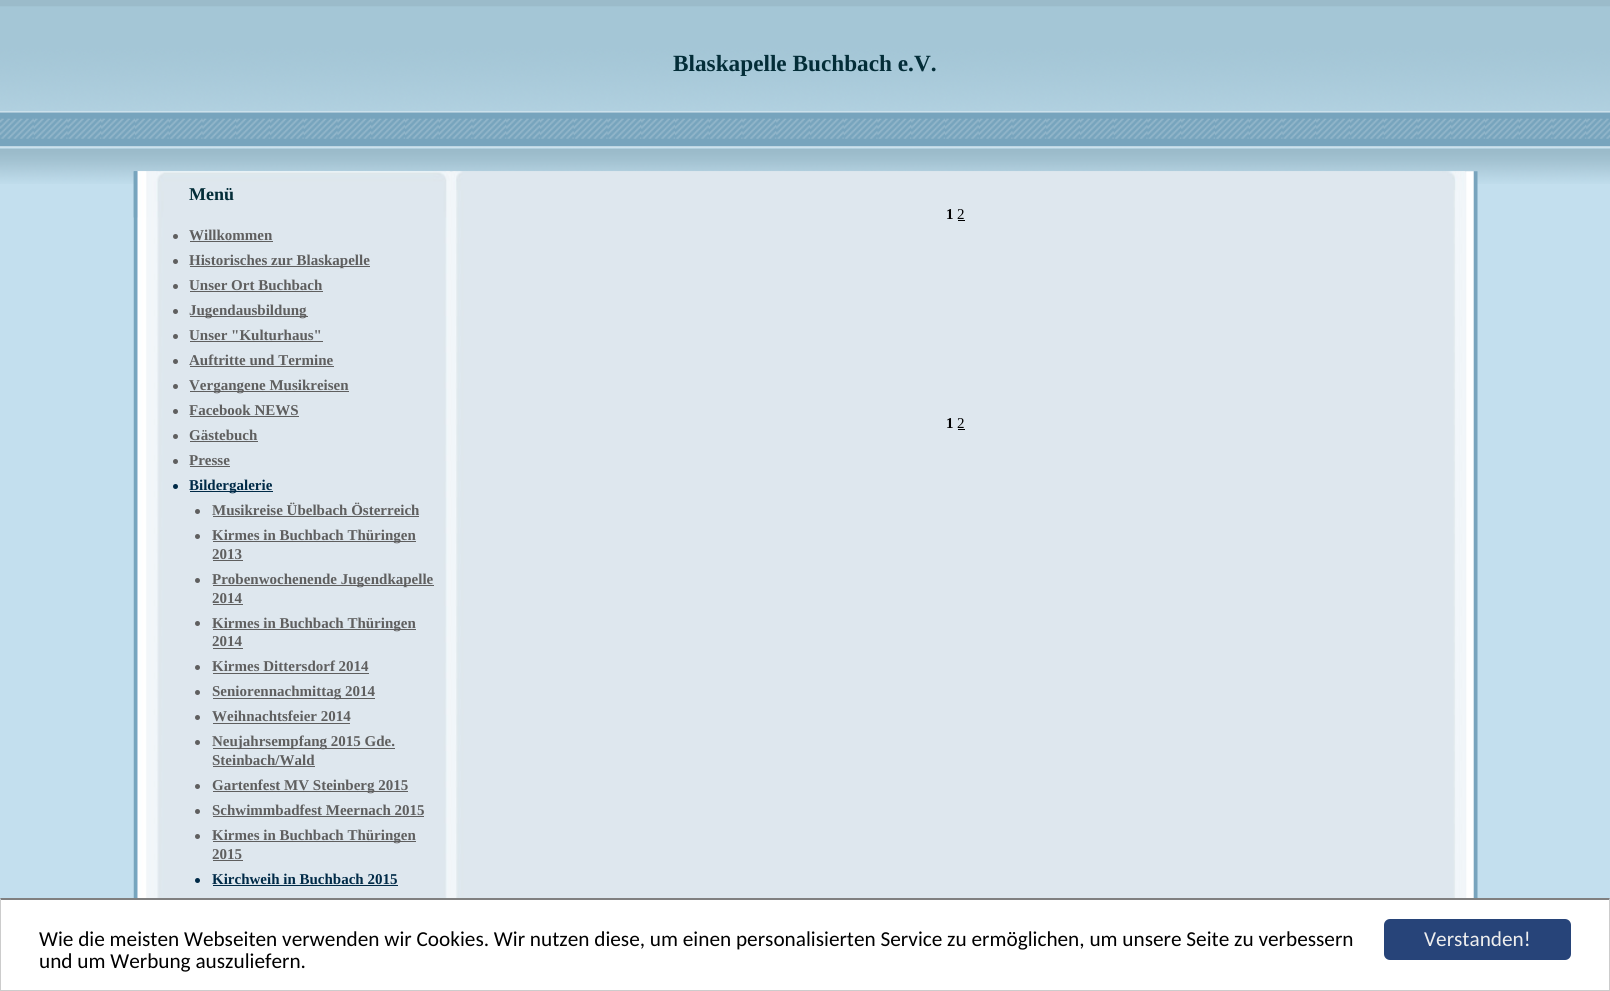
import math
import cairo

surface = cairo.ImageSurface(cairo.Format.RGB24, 1610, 991)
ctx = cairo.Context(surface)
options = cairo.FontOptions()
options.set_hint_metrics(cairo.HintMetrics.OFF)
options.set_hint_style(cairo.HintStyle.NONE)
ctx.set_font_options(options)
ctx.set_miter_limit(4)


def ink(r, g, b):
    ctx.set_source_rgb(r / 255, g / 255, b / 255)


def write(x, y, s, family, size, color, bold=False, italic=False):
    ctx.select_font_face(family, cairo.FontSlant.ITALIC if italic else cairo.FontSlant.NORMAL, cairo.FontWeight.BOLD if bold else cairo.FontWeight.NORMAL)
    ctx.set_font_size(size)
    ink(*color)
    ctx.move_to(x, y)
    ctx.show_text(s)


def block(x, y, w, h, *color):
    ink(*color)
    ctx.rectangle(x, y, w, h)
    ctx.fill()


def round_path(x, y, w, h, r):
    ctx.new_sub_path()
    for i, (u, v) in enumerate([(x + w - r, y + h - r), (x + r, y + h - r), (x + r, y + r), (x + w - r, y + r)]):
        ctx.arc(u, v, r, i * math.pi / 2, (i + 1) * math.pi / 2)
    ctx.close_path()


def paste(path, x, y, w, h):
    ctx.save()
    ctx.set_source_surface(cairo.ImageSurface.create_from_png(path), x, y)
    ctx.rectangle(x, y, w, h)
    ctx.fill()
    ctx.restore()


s1 = dict(family="Liberation Serif", size=23.25, color=(3, 45, 56), bold=True)
s2 = dict(family="Liberation Serif", size=18, color=(3, 45, 56), bold=True)
s3 = dict(family="Liberation Serif", size=15, color=(95, 95, 95), bold=True)
s4 = dict(family="Liberation Serif", size=15, color=(0, 42, 71), bold=True)
s5 = dict(family="Liberation Serif", size=15, color=(0, 0, 0), bold=True)
s6 = dict(family="Liberation Serif", size=15, color=(0, 0, 0))
s7 = dict(family="Carlito", size=21.25, color=(0, 0, 0))
s8 = dict(family="Carlito", size=21.25, color=(238, 238, 238))

ink(195, 223, 238)
ctx.paint()
paste("pic1.png", 0, 0, 1610, 184)
write(673, 71, "Blaskapelle Buchbach e.V.", **s1)
paste("pic2.png", 133, 171, 1345, 727)
paste("pic3.png", 133, 171, 317, 47)
write(189, 200, "Menü", **s2)
ink(95, 95, 95)
ctx.new_path()
ctx.arc(175.5, 236.5, 2.5, 0, 2 * math.pi)
ctx.fill()
write(189, 240, "Willkommen", **s3)
block(190, 241, 83, 1, 95, 95, 95)
ctx.new_path()
ctx.arc(175.5, 261.5, 2.5, 0, 2 * math.pi)
ctx.fill()
block(190, 266, 180, 1, 95, 95, 95)
write(189, 265, "Historisches zur Blaskapelle", **s3)
ctx.new_path()
ctx.arc(175.5, 286.5, 2.5, 0, 2 * math.pi)
ctx.fill()
write(189, 290, "Unser Ort Buchbach", **s3)
block(190, 291, 133, 1, 95, 95, 95)
ctx.new_path()
ctx.arc(175.5, 311.5, 2.5, 0, 2 * math.pi)
ctx.fill()
block(190, 316, 118, 1, 95, 95, 95)
write(189, 315, "Jugendausbildung", **s3)
ctx.new_path()
ctx.arc(175.5, 336.5, 2.5, 0, 2 * math.pi)
ctx.fill()
write(189, 340, "Unser \"Kulturhaus\"", **s3)
block(190, 341, 133, 1, 95, 95, 95)
ctx.new_path()
ctx.arc(175.5, 361.5, 2.5, 0, 2 * math.pi)
ctx.fill()
write(189, 365, "Auftritte und Termine", **s3)
block(190, 366, 144, 1, 95, 95, 95)
ctx.new_path()
ctx.arc(175.5, 386.5, 2.5, 0, 2 * math.pi)
ctx.fill()
block(190, 391, 159, 1, 95, 95, 95)
write(189, 390, "Vergangene Musikreisen", **s3)
ctx.new_path()
ctx.arc(175.5, 411.5, 2.5, 0, 2 * math.pi)
ctx.fill()
write(189, 415, "Facebook NEWS", **s3)
block(190, 416, 109, 1, 95, 95, 95)
ctx.new_path()
ctx.arc(175.5, 436.5, 2.5, 0, 2 * math.pi)
ctx.fill()
write(189, 440, "Gästebuch", **s3)
block(190, 441, 68, 1, 95, 95, 95)
ctx.new_path()
ctx.arc(175.5, 461.5, 2.5, 0, 2 * math.pi)
ctx.fill()
write(189, 465, "Presse", **s3)
block(190, 466, 40, 1, 95, 95, 95)
ink(0, 42, 71)
ctx.new_path()
ctx.arc(175.5, 486.5, 2.5, 0, 2 * math.pi)
ctx.fill()
block(190, 491, 83, 1, 0, 42, 71)
write(189, 490, "Bildergalerie", **s4)
ink(95, 95, 95)
ctx.new_path()
ctx.arc(197.5, 511.5, 2.5, 0, 2 * math.pi)
ctx.fill()
write(212, 515, "Musikreise Übelbach Österreich", **s3)
block(213, 516, 206, 1, 95, 95, 95)
ctx.new_path()
ctx.arc(197.5, 536.5, 2.5, 0, 2 * math.pi)
ctx.fill()
block(213, 541, 203, 1, 95, 95, 95)
write(212, 540, "Kirmes in Buchbach Thüringen", **s3)
write(212, 559, "2013", **s3)
block(213, 560, 30, 1, 95, 95, 95)
ctx.new_path()
ctx.arc(197.5, 580.5, 2.5, 0, 2 * math.pi)
ctx.fill()
block(213, 585, 221, 1, 95, 95, 95)
write(212, 584, "Probenwochenende Jugendkapelle", **s3)
write(212, 603, "2014", **s3)
block(213, 604, 30, 1, 95, 95, 95)
ctx.new_path()
ctx.arc(197.5, 623.5, 2.5, 0, 2 * math.pi)
ctx.fill()
block(213, 629, 203, 1, 95, 95, 95)
write(212, 628, "Kirmes in Buchbach Thüringen", **s3)
write(212, 646, "2014", **s3)
block(213, 648, 30, 1, 95, 95, 95)
ctx.new_path()
ctx.arc(197.5, 667.5, 2.5, 0, 2 * math.pi)
ctx.fill()
write(212, 671, "Kirmes Dittersdorf 2014", **s3)
block(213, 673, 156, 1, 95, 95, 95)
ctx.new_path()
ctx.arc(197.5, 692.5, 2.5, 0, 2 * math.pi)
ctx.fill()
block(213, 698, 162, 1, 95, 95, 95)
write(212, 696, "Seniorennachmittag 2014", **s3)
ctx.new_path()
ctx.arc(197.5, 717.5, 2.5, 0, 2 * math.pi)
ctx.fill()
write(212, 721, "Weihnachtsfeier 2014", **s3)
block(213, 723, 137, 1, 95, 95, 95)
ctx.new_path()
ctx.arc(197.5, 742.5, 2.5, 0, 2 * math.pi)
ctx.fill()
block(213, 748, 182, 1, 95, 95, 95)
write(212, 746, "Neujahrsempfang 2015 Gde.", **s3)
write(212, 765, "Steinbach/Wald", **s3)
block(213, 766, 102, 1, 95, 95, 95)
ctx.new_path()
ctx.arc(197.5, 786.5, 2.5, 0, 2 * math.pi)
ctx.fill()
block(213, 791, 195, 1, 95, 95, 95)
write(212, 790, "Gartenfest MV Steinberg 2015", **s3)
ctx.new_path()
ctx.arc(197.5, 811.5, 2.5, 0, 2 * math.pi)
ctx.fill()
write(212, 815, "Schwimmbadfest Meernach 2015", **s3)
block(213, 816, 211, 1, 95, 95, 95)
ctx.new_path()
ctx.arc(197.5, 836.5, 2.5, 0, 2 * math.pi)
ctx.fill()
block(213, 841, 203, 1, 95, 95, 95)
write(212, 840, "Kirmes in Buchbach Thüringen", **s3)
write(212, 859, "2015", **s3)
block(213, 860, 30, 1, 95, 95, 95)
ink(0, 42, 71)
ctx.new_path()
ctx.arc(197.5, 880.5, 2.5, 0, 2 * math.pi)
ctx.fill()
write(212, 884, "Kirchweih in Buchbach 2015", **s4)
block(213, 885, 185, 1, 0, 42, 71)
paste("pic4.png", 452, 171, 1013, 19)
write(946, 219, "1", **s5)
write(957, 219, "2", **s6)
block(958, 220, 7, 1, 0, 0, 0)
write(946, 428, "1", **s5)
write(957, 428, "2", **s6)
block(958, 429, 7, 1, 0, 0, 0)
block(1, 900, 1608, 90, 255, 255, 255)
ink(128, 128, 128)
ctx.new_path()
ctx.move_to(0, 898)
ctx.line_to(1610, 898)
ctx.line_to(1609, 900)
ctx.line_to(1, 900)
ctx.close_path()
ctx.fill()
ink(204, 204, 204)
ctx.new_path()
ctx.move_to(1610, 898)
ctx.line_to(1610, 991)
ctx.line_to(1609, 990)
ctx.line_to(1609, 900)
ctx.close_path()
ctx.fill()
block(0, 990, 1610, 1, 204, 204, 204)
ctx.new_path()
ctx.move_to(0, 991)
ctx.line_to(0, 898)
ctx.line_to(1, 900)
ctx.line_to(1, 990)
ctx.close_path()
ctx.fill()
write(39, 946, "Wie die meisten Webseiten verwenden wir Cookies. Wir nutzen diese, um einen personalisierten Service zu ermöglichen, um unsere Seite zu verbessern", **s7)
write(39, 968, "und um Werbung auszuliefern.", **s7)
ink(39, 68, 121)
round_path(1384, 919, 187, 41, 6)
ctx.fill()
write(1424, 946, "Verstanden!", **s8)
surface.write_to_png("screenshot.png")
